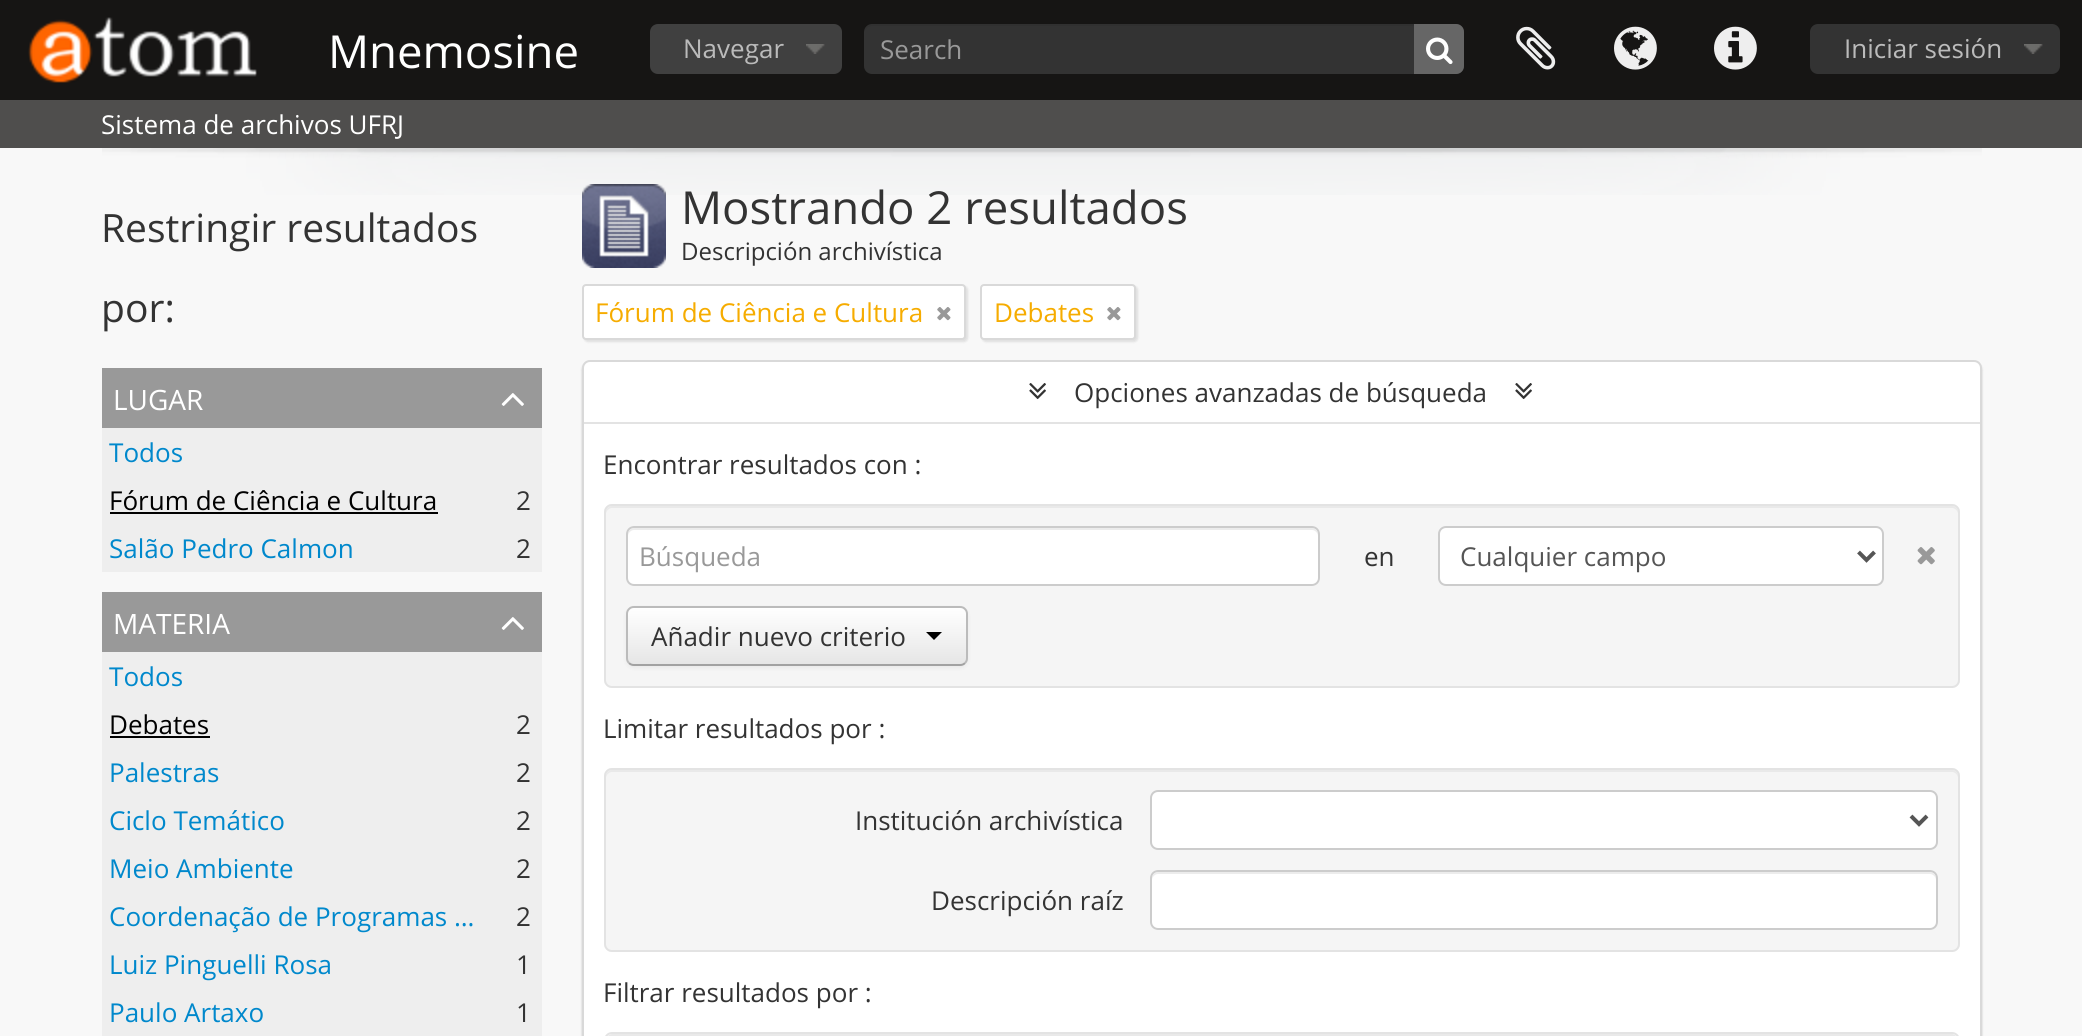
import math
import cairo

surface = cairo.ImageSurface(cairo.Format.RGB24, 2082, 1036)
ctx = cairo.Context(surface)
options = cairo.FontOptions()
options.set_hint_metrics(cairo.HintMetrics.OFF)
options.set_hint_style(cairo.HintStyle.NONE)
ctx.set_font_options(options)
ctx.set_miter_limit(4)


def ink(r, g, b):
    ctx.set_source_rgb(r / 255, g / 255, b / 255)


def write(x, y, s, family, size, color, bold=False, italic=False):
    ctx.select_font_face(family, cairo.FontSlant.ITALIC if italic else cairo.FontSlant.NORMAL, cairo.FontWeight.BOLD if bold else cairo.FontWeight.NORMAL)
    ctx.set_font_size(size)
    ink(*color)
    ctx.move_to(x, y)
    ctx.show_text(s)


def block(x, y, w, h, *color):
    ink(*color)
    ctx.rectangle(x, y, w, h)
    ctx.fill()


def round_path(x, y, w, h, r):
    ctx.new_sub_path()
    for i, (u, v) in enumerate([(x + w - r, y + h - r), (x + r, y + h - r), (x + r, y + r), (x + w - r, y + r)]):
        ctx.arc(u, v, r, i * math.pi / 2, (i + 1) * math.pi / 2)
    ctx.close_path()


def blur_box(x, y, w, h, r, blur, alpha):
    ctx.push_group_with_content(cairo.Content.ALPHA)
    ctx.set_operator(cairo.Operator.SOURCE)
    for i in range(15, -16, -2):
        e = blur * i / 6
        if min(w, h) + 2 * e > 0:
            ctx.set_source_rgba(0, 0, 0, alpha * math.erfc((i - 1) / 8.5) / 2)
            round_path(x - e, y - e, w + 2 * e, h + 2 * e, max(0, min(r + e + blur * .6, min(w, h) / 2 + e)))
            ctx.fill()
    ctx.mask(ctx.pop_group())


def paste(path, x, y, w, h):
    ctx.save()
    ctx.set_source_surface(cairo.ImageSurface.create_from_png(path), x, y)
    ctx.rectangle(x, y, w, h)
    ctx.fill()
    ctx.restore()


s1 = dict(family="Open Sans", size=45.5, color=(255, 255, 255))
s2 = dict(family="Open Sans", size=26, color=(187, 187, 187))
s3 = dict(family="Open Sans", size=26, color=(153, 153, 153))
s4 = dict(family="Open Sans", size=26, color=(255, 255, 255))
s5 = dict(family="Open Sans", size=39, color=(51, 51, 51))
s6 = dict(family="Open Sans", size=28, color=(255, 255, 255))
s7 = dict(family="Open Sans", size=26, color=(0, 136, 204))
s8 = dict(family="Open Sans", size=26, color=(0, 0, 0))
s9 = dict(family="Open Sans", size=26, color=(51, 51, 51))
s10 = dict(family="Open Sans", size=45.5, color=(51, 51, 51))
s11 = dict(family="Open Sans", size=24, color=(51, 51, 51))
s12 = dict(family="Open Sans", size=26, color=(246, 172, 0))
s13 = dict(family="Open Sans", size=26, color=(85, 85, 85))

ink(248, 248, 248)
ctx.paint()
block(0, 0, 2082, 100, 22, 21, 20)
paste("pic1.png", 28, 17, 229, 66)
write(328, 68, "Mnemosine", **s1)
ink(64, 64, 64)
round_path(650, 24, 192, 50, 8)
ctx.fill()
paste("pic2.png", 806, 44, 19, 10)
write(683, 58, "Navegar", **s2)
ink(51, 51, 51)
round_path(864, 24, 600, 50, 8)
ctx.fill()
ctx.set_source_rgba(0, 0, 0, 0.07)
ctx.new_path()
ctx.move_to(872, 26)
ctx.line_to(1456, 26)
ctx.curve_to(1460, 26, 1464, 30, 1464, 34)
ctx.curve_to(1464, 29, 1462, 24, 1456, 24)
ctx.line_to(872, 24)
ctx.curve_to(866, 24, 864, 29, 864, 34)
ctx.curve_to(864, 30, 868, 26, 872, 26)
ctx.close_path()
ctx.fill()
write(880, 59, "Search", **s3)
ink(102, 102, 102)
ctx.new_path()
ctx.move_to(1414, 24)
ctx.line_to(1456, 24)
ctx.curve_to(1460.5, 24, 1464, 27.5, 1464, 32)
ctx.line_to(1464, 66)
ctx.curve_to(1464, 70.5, 1460.5, 74, 1456, 74)
ctx.line_to(1414, 74)
ctx.close_path()
ctx.fill()
paste("pic3.png", 1426, 37, 27, 28)
paste("pic4.png", 1516, 26, 40, 44)
paste("pic5.png", 1614, 26, 43, 44)
paste("pic6.png", 1714, 26, 43, 44)
ink(51, 51, 51)
round_path(1810, 24, 250, 50, 8)
ctx.fill()
paste("pic7.png", 2024, 44, 19, 10)
write(1844, 58, "Iniciar sesión", **s2)
block(0, 100, 2082, 48, 79, 78, 77)
write(101, 134, "Sistema de archivos UFRJ", **s4)
paste("pic8.png", 102, 148, 1880, 47)
write(101, 242, "Restringir resultados", **s5)
write(101, 322, "por:", **s5)
block(102, 368, 440, 60, 153, 153, 153)
write(113, 410, "LUGAR", **s6)
paste("pic9.png", 501, 393, 23, 13)
block(102, 428, 440, 144, 238, 238, 238)
write(109, 462, "Todos", **s7)
write(109, 510, "Fórum de Ciência e Cultura", **s8)
block(110, 512, 328, 2, 0, 0, 0)
write(516, 510, "2", **s9)
write(109, 558, "Salão Pedro Calmon", **s7)
write(516, 558, "2", **s9)
block(102, 592, 440, 60, 153, 153, 153)
write(113, 634, "MATERIA", **s6)
paste("pic9.png", 501, 617, 23, 13)
block(102, 652, 440, 384, 238, 238, 238)
write(109, 686, "Todos", **s7)
write(109, 734, "Debates", **s8)
block(110, 736, 100, 2, 0, 0, 0)
write(516, 734, "2", **s9)
write(109, 782, "Palestras", **s7)
write(516, 782, "2", **s9)
write(109, 830, "Ciclo Temático", **s7)
write(516, 830, "2", **s9)
write(109, 878, "Meio Ambiente", **s7)
write(516, 878, "2", **s9)
write(109, 926, "Coordenação de Programas …", **s7)
write(516, 926, "2", **s9)
write(109, 974, "Luiz Pinguelli Rosa", **s7)
write(516, 974, "1", **s9)
write(109, 1022, "Paulo Artaxo", **s7)
write(516, 1022, "1", **s9)
paste("pic10.png", 582, 184, 84, 84)
write(681, 224, "Mostrando 2 resultados", **s10)
write(681, 260, "Descripción archivística", **s11)
ink(0, 0, 0)
blur_box(584, 286, 384, 56, 4, 1, 0.1)
ink(255, 255, 255)
round_path(583, 285, 382, 54, 3)
ctx.fill_preserve()
ink(217, 217, 217)
ctx.stroke()
write(595, 322, "Fórum de Ciência e Cultura", **s12)
paste("pic11.png", 937, 307, 14, 14)
ink(0, 0, 0)
blur_box(982, 286, 156, 56, 4, 1, 0.1)
ink(255, 255, 255)
round_path(981, 285, 154, 54, 3)
ctx.fill_preserve()
ink(217, 217, 217)
ctx.stroke()
write(994, 322, "Debates", **s12)
paste("pic11.png", 1107, 307, 14, 14)
ink(0, 0, 0)
blur_box(582, 362, 1400, 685, 8, 1, 0.2)
ink(255, 255, 255)
round_path(583, 361, 1398, 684, 7)
ctx.fill_preserve()
ink(217, 217, 217)
ctx.stroke()
paste("pic12.png", 1029, 383, 17, 17)
write(1074, 402, "Opciones avanzadas de búsqueda", **s9)
paste("pic12.png", 1515, 383, 17, 17)
block(584, 422, 1396, 2, 227, 227, 227)
write(603, 474, "Encontrar resultados con :", **s9)
ink(245, 245, 245)
round_path(604, 504, 1356, 184, 8)
ctx.fill()
ink(233, 233, 233)
ctx.new_path()
ctx.move_to(612, 508)
ctx.line_to(1952, 508)
ctx.curve_to(1955, 508, 1958, 511, 1958, 514)
ctx.line_to(1958, 512)
ctx.curve_to(1958, 509, 1955, 506, 1952, 506)
ctx.line_to(612, 506)
ctx.curve_to(609, 506, 606, 509, 606, 512)
ctx.line_to(606, 514)
ctx.curve_to(606, 511, 609, 508, 612, 508)
ctx.close_path()
ctx.fill()
round_path(605, 505, 1354, 182, 7)
ink(227, 227, 227)
ctx.stroke()
ink(255, 255, 255)
round_path(626, 526, 694, 60, 8)
ctx.fill()
ink(236, 236, 236)
ctx.new_path()
ctx.move_to(634, 530)
ctx.line_to(1312, 530)
ctx.curve_to(1315, 530, 1318, 533, 1318, 536)
ctx.line_to(1318, 534)
ctx.curve_to(1318, 531, 1315, 528, 1312, 528)
ctx.line_to(634, 528)
ctx.curve_to(631, 528, 628, 531, 628, 534)
ctx.line_to(628, 536)
ctx.curve_to(628, 533, 631, 530, 634, 530)
ctx.close_path()
ctx.fill()
round_path(627, 527, 692, 58, 7)
ink(204, 204, 204)
ctx.stroke()
write(639, 566, "Búsqueda", **s3)
write(1364, 566, "en", **s9)
ink(255, 255, 255)
round_path(1439, 527, 444, 58, 7)
ctx.fill_preserve()
ink(204, 204, 204)
ctx.stroke()
ctx.new_path()
ctx.move_to(1858.5, 552)
ctx.line_to(1866.5, 560)
ctx.line_to(1874.5, 552)
ink(85, 85, 85)
ctx.set_line_width(4)
ctx.stroke()
write(1460, 566, "Cualquier campo", **s13)
paste("pic13.png", 1917, 547, 18, 18)
ink(0, 0, 0)
blur_box(626, 608, 342, 60, 8, 2, 0.05)
ctx.save()
round_path(626, 606, 342, 60, 8)
ctx.clip()
gradient = cairo.LinearGradient(797, 608, 797, 664)
gradient.add_color_stop_rgba(0, 1, 1, 1, 1)
gradient.add_color_stop_rgba(1, 0.902, 0.902, 0.902, 1)
ctx.set_source(gradient)
ctx.rectangle(626, 608, 342, 56)
ctx.fill()
ctx.restore()
ctx.new_path()
ctx.move_to(965, 663)
ctx.curve_to(963.5, 664.5, 962, 665, 960, 665)
ctx.line_to(634, 665)
ctx.curve_to(632, 665, 630.5, 664.5, 629, 663)
ink(162, 162, 162)
ctx.set_line_width(2)
ctx.stroke()
ctx.new_path()
ctx.move_to(629, 663)
ctx.curve_to(627.5, 661.5, 627, 660, 627, 658)
ctx.line_to(627, 614)
ctx.curve_to(627, 612, 627.5, 610.5, 629, 609)
ctx.curve_to(630.5, 607.5, 632, 607, 634, 607)
ctx.line_to(960, 607)
ctx.curve_to(962, 607, 963.5, 607.5, 965, 609)
ctx.curve_to(966.5, 610.5, 967, 612, 967, 614)
ctx.line_to(967, 658)
ctx.curve_to(967, 660, 966.5, 661.5, 965, 663)
ink(187, 187, 187)
ctx.stroke()
write(651, 646, "Añadir nuevo criterio", **s9)
ink(0, 0, 0)
ctx.new_path()
ctx.move_to(926, 632)
ctx.line_to(942, 632)
ctx.line_to(934, 640)
ctx.close_path()
ctx.fill()
write(603, 738, "Limitar resultados por :", **s9)
ink(245, 245, 245)
round_path(604, 768, 1356, 184, 8)
ctx.fill()
ink(233, 233, 233)
ctx.new_path()
ctx.move_to(612, 772)
ctx.line_to(1952, 772)
ctx.curve_to(1955, 772, 1958, 775, 1958, 778)
ctx.line_to(1958, 776)
ctx.curve_to(1958, 773, 1955, 770, 1952, 770)
ctx.line_to(612, 770)
ctx.curve_to(609, 770, 606, 773, 606, 776)
ctx.line_to(606, 778)
ctx.curve_to(606, 775, 609, 772, 612, 772)
ctx.close_path()
ctx.fill()
round_path(605, 769, 1354, 182, 7)
ink(227, 227, 227)
ctx.stroke()
write(855, 830, "Institución archivística", **s9)
ink(255, 255, 255)
round_path(1151, 791, 786, 58, 7)
ctx.fill_preserve()
ink(204, 204, 204)
ctx.stroke()
ctx.new_path()
ctx.move_to(1911, 816)
ctx.line_to(1919, 824)
ctx.line_to(1927, 816)
ink(85, 85, 85)
ctx.set_line_width(4)
ctx.stroke()
write(931, 910, "Descripción raíz", **s9)
ink(255, 255, 255)
round_path(1150, 870, 788, 60, 8)
ctx.fill()
ink(236, 236, 236)
ctx.new_path()
ctx.move_to(1158, 874)
ctx.line_to(1930, 874)
ctx.curve_to(1933, 874, 1936, 877, 1936, 880)
ctx.line_to(1936, 878)
ctx.curve_to(1936, 875, 1933, 872, 1930, 872)
ctx.line_to(1158, 872)
ctx.curve_to(1155, 872, 1152, 875, 1152, 878)
ctx.line_to(1152, 880)
ctx.curve_to(1152, 877, 1155, 874, 1158, 874)
ctx.close_path()
ctx.fill()
round_path(1151, 871, 786, 58, 7)
ink(204, 204, 204)
ctx.set_line_width(2)
ctx.stroke()
write(603, 1002, "Filtrar resultados por :", **s9)
ink(233, 233, 233)
ctx.new_path()
ctx.move_to(612, 1036)
ctx.line_to(1952, 1036)
ctx.curve_to(1955, 1036, 1958, 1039, 1958, 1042)
ctx.line_to(1958, 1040)
ctx.curve_to(1958, 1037, 1955, 1034, 1952, 1034)
ctx.line_to(612, 1034)
ctx.curve_to(609, 1034, 606, 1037, 606, 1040)
ctx.line_to(606, 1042)
ctx.curve_to(606, 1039, 609, 1036, 612, 1036)
ctx.close_path()
ctx.fill()
round_path(605, 1033, 1354, 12, 7)
ink(227, 227, 227)
ctx.stroke()
surface.write_to_png("screenshot.png")
